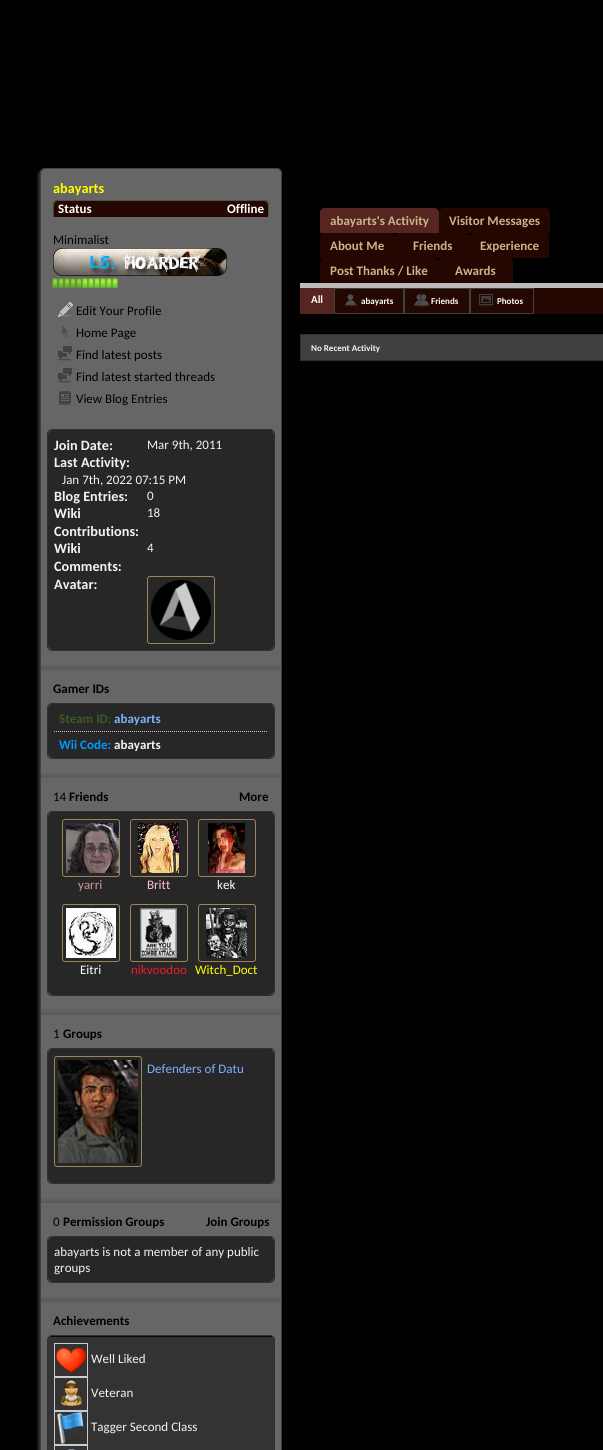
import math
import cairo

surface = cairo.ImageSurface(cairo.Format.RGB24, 603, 1450)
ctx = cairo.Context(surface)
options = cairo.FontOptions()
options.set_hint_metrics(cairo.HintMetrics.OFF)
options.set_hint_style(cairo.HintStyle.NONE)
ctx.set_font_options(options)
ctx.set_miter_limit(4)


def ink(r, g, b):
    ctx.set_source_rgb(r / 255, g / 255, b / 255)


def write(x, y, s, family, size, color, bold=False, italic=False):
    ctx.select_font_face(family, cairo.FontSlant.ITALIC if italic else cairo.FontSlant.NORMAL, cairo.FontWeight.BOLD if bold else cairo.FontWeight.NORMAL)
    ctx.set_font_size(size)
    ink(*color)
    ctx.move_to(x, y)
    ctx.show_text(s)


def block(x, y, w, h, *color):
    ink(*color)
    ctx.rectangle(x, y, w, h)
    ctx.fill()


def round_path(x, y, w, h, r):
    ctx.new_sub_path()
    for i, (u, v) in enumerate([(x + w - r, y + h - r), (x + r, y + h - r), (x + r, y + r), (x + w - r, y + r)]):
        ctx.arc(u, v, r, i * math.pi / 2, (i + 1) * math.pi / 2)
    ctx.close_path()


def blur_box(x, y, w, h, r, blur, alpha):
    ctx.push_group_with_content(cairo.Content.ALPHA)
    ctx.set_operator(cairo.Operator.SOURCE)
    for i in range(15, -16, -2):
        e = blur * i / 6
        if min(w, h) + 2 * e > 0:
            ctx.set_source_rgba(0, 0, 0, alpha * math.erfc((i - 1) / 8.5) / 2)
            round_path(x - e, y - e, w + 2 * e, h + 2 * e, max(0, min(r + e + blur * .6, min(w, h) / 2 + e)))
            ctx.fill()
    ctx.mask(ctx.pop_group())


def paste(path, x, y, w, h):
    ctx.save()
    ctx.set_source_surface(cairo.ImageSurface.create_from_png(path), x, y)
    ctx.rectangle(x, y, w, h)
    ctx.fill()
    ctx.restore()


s1 = dict(family="Carlito", size=14.25, color=(255, 255, 0), bold=True)
s2 = dict(family="Carlito", size=13, color=(255, 255, 255), bold=True)
s3 = dict(family="Carlito", size=13, color=(0, 0, 0))
s4 = dict(family="Carlito", size=14.25, color=(243, 243, 243), bold=True)
s5 = dict(family="Carlito", size=13, color=(243, 243, 243))
s6 = dict(family="Carlito", size=13, color=(0, 0, 0), bold=True)
s7 = dict(family="Carlito", size=13, color=(59, 90, 38), bold=True)
s8 = dict(family="Carlito", size=13, color=(124, 179, 255), bold=True)
s9 = dict(family="Carlito", size=13, color=(0, 153, 255), bold=True)
s10 = dict(family="Carlito", size=13, color=(243, 243, 243), bold=True)
s11 = dict(family="Carlito", size=13, color=(204, 153, 153))
s12 = dict(family="Carlito", size=13, color=(255, 192, 203))
s13 = dict(family="Carlito", size=13, color=(255, 255, 255))
s14 = dict(family="Carlito", size=13, color=(237, 26, 46))
s15 = dict(family="Carlito", size=13, color=(255, 255, 0))
s16 = dict(family="Carlito", size=13, color=(124, 179, 255))
s17 = dict(family="Carlito", size=13, color=(202, 180, 137), bold=True)
s18 = dict(family="Carlito", size=11, color=(255, 255, 255), bold=True)
s19 = dict(family="Carlito", size=9, color=(255, 255, 255), bold=True)
s20 = dict(family="Carlito", size=9, color=(243, 243, 243), bold=True)

ink(1, 1, 1)
ctx.paint()
ink(48, 48, 48)
blur_box(38, 170, 242, 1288, 5, 1, 1)
ink(102, 102, 102)
round_path(40.5, 168.5, 241, 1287, 4.5)
ctx.fill_preserve()
ink(64, 64, 64)
ctx.set_line_width(1)
ctx.stroke()
write(53, 193, "abayarts", **s1)
paste("pic1.png", 53, 200, 216, 17)
ink(81, 81, 81)
ctx.set_fill_rule(cairo.FillRule.EVEN_ODD)
ctx.new_path()
ctx.move_to(58, 200)
ctx.line_to(264, 200)
ctx.curve_to(267, 200, 269, 202, 269, 205)
ctx.line_to(269, 217)
ctx.line_to(53, 217)
ctx.curve_to(53, 213, 51, 200, 58, 200)
ctx.close_path()
ctx.move_to(58, 201)
ctx.line_to(264, 201)
ctx.curve_to(266, 201, 268, 203, 268, 205)
ctx.line_to(268, 217)
ctx.line_to(54, 217)
ctx.curve_to(54, 213, 52, 201, 58, 201)
ctx.close_path()
ctx.fill()
write(58, 213, "Status", **s2)
write(227, 213, "Offline", **s2)
write(53, 244, "Minimalist", **s3)
paste("pic2.png", 53, 248, 174, 28)
paste("pic3.png", 52, 278, 6, 10)
paste("pic3.png", 58, 278, 6, 10)
paste("pic3.png", 64, 278, 6, 10)
paste("pic3.png", 70, 278, 6, 10)
paste("pic3.png", 76, 278, 6, 10)
paste("pic4.png", 82, 278, 6, 10)
paste("pic4.png", 88, 278, 6, 10)
paste("pic4.png", 94, 278, 6, 10)
paste("pic4.png", 100, 278, 6, 10)
paste("pic4.png", 106, 278, 6, 10)
paste("pic4.png", 112, 278, 6, 10)
paste("pic5.png", 58, 302, 15, 15)
write(76, 315, "Edit Your Profile", **s3)
paste("pic6.png", 62, 325, 8, 13)
write(76, 337, "Home Page", **s3)
paste("pic7.png", 58, 346, 14, 15)
write(76, 359, "Find latest posts", **s3)
paste("pic7.png", 58, 368, 14, 15)
write(76, 381, "Find latest started threads", **s3)
paste("pic8.png", 58, 391, 13, 14)
write(76, 403, "View Blog Entries", **s3)
round_path(47.5, 429.5, 227, 221, 4.5)
ink(48, 48, 48)
ctx.stroke()
ink(39, 39, 39)
round_path(48, 430, 226, 220, 5)
ctx.fill()
block(51, 430, 221, 1, 39, 39, 39)
write(54, 450, "Join Date:", **s4)
write(147, 449, "Mar 9th, 2011", **s5)
write(54, 467, "Last Activity:", **s4)
write(62, 484, "Jan 7th, 2022 07:15 PM", **s5)
write(54, 501, "Blog Entries:", **s4)
write(147, 500, "0", **s5)
write(54, 518, "Wiki", **s4)
write(54, 536, "Contributions:", **s4)
write(147, 517, "18", **s5)
write(54, 553, "Wiki", **s4)
write(54, 571, "Comments:", **s4)
write(147, 552, "4", **s5)
write(54, 589, "Avatar:", **s4)
round_path(147.5, 576.5, 67, 67, 2.5)
ink(156, 132, 92)
ctx.stroke()
paste("pic9.png", 151, 580, 60, 60)
paste("pic10.png", 41, 665, 240, 5)
write(53, 693, "Gamer IDs", **s6)
round_path(47.5, 703.5, 227, 55, 4.5)
ink(48, 48, 48)
ctx.stroke()
ink(39, 39, 39)
round_path(48, 704, 226, 54, 5)
ctx.fill()
block(51, 704, 221, 1, 39, 39, 39)
write(59, 723, "Steam ID:", **s7)
write(114, 723, "abayarts", **s8)
ctx.new_path()
ctx.move_to(54, 731.5)
ctx.line_to(268, 731.5)
ink(201, 201, 201)
ctx.set_dash([1, 1])
ctx.stroke()
write(59, 749, "Wii Code:", **s9)
write(114, 749, "abayarts", **s10)
paste("pic10.png", 41, 773, 240, 5)
write(53, 801, "14", **s3)
write(69, 801, "Friends", **s6)
write(239, 801, "More", **s6)
round_path(47.5, 811.5, 227, 184, 4.5)
ink(48, 48, 48)
ctx.set_dash([])
ctx.stroke()
ink(39, 39, 39)
round_path(48, 812, 226, 183, 5)
ctx.fill()
block(51, 812, 221, 1, 39, 39, 39)
round_path(62.5, 819.5, 57, 57, 2.5)
ink(156, 132, 92)
ctx.stroke()
paste("pic11.png", 66, 823, 53, 50)
write(78, 889, "yarri", **s11)
round_path(130.5, 819.5, 57, 57, 2.5)
ink(156, 132, 92)
ctx.stroke()
paste("pic12.png", 138, 823, 41, 50)
write(147, 889, "Britt", **s12)
round_path(198.5, 819.5, 57, 57, 2.5)
ink(156, 132, 92)
ctx.stroke()
paste("pic13.png", 208, 823, 37, 50)
write(217, 889, "kek", **s13)
round_path(62.5, 904.5, 57, 57, 2.5)
ink(156, 132, 92)
ctx.stroke()
paste("pic14.png", 66, 908, 50, 50)
write(80, 974, "Eitri", **s13)
round_path(130.5, 904.5, 57, 57, 2.5)
ink(156, 132, 92)
ctx.stroke()
paste("pic15.png", 140, 908, 37, 50)
write(131, 974, "nikvoodoo", **s14)
round_path(198.5, 904.5, 57, 57, 2.5)
ink(156, 132, 92)
ctx.stroke()
paste("pic16.png", 206, 908, 41, 50)
write(195, 974, "Witch_Doct", **s15)
paste("pic10.png", 41, 1010, 240, 5)
write(53, 1038, "1", **s3)
write(63, 1038, "Groups", **s6)
round_path(47.5, 1048.5, 227, 135, 4.5)
ink(48, 48, 48)
ctx.stroke()
ink(39, 39, 39)
round_path(48, 1049, 226, 134, 5)
ctx.fill()
block(51, 1049, 221, 1, 39, 39, 39)
round_path(54.5, 1056.5, 87, 110, 2.5)
ink(156, 132, 92)
ctx.stroke()
paste("pic17.png", 58, 1060, 80, 103)
write(147, 1073, "Defenders of Datu", **s16)
paste("pic10.png", 41, 1198, 240, 5)
write(53, 1226, "0", **s3)
write(63, 1226, "Permission Groups", **s6)
write(206, 1226, "Join Groups", **s6)
round_path(47.5, 1236.5, 227, 46, 4.5)
ink(48, 48, 48)
ctx.stroke()
ink(39, 39, 39)
round_path(48, 1237, 226, 45, 5)
ctx.fill()
block(51, 1237, 221, 1, 39, 39, 39)
write(54, 1256, "abayarts is not a member of any public", **s5)
write(54, 1272, "groups", **s5)
paste("pic10.png", 41, 1297, 240, 5)
write(53, 1325, "Achievements", **s6)
ink(51, 51, 51)
round_path(47.5, 1335.5, 227, 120, 4.5)
ctx.fill_preserve()
ink(48, 48, 48)
ctx.stroke()
block(51, 1336, 221, 1, 9, 9, 9)
ctx.rectangle(54.5, 1343.5, 33, 33)
ink(204, 204, 204)
ctx.stroke()
paste("pic18.png", 56, 1348, 30, 25)
write(91, 1363, "Well Liked", **s5)
ctx.rectangle(54.5, 1377.5, 33, 33)
ink(204, 204, 204)
ctx.stroke()
paste("pic19.png", 60, 1379, 22, 28)
write(91, 1397, "Veteran", **s5)
ctx.rectangle(54.5, 1411.5, 33, 33)
ink(204, 204, 204)
ctx.stroke()
paste("pic20.png", 57, 1412, 27, 32)
write(91, 1431, "Tagger Second Class", **s5)
ctx.rectangle(54.5, 1445.5, 33, 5)
ink(204, 204, 204)
ctx.stroke()
paste("pic21.png", 65, 1448, 12, 2)
ink(86, 37, 33)
ctx.new_path()
ctx.move_to(325, 208)
ctx.line_to(434, 208)
ctx.curve_to(437, 208, 439, 210, 439, 213)
ctx.line_to(439, 233)
ctx.line_to(320, 233)
ctx.line_to(320, 213)
ctx.curve_to(320, 210, 322, 208, 325, 208)
ctx.close_path()
ctx.fill()
write(330, 225, "abayarts's Activity", **s17)
ink(36, 7, 0)
ctx.new_path()
ctx.move_to(444, 208)
ctx.line_to(545, 208)
ctx.curve_to(548, 208, 550, 210, 550, 213)
ctx.line_to(550, 233)
ctx.line_to(439, 233)
ctx.line_to(439, 213)
ctx.curve_to(439, 210, 441, 208, 444, 208)
ctx.close_path()
ctx.fill()
write(449, 225, "Visitor Messages", **s17)
ink(36, 7, 0)
ctx.new_path()
ctx.move_to(325, 233)
ctx.line_to(390, 233)
ctx.curve_to(393, 233, 395, 235, 395, 238)
ctx.line_to(395, 258)
ctx.line_to(320, 258)
ctx.line_to(320, 238)
ctx.curve_to(320, 235, 322, 233, 325, 233)
ctx.close_path()
ctx.fill()
write(330, 250, "About Me", **s17)
ink(36, 7, 0)
ctx.new_path()
ctx.move_to(400, 233)
ctx.line_to(465, 233)
ctx.curve_to(468, 233, 470, 235, 470, 238)
ctx.line_to(470, 258)
ctx.line_to(395, 258)
ctx.line_to(395, 238)
ctx.curve_to(395, 235, 397, 233, 400, 233)
ctx.close_path()
ctx.fill()
write(413, 250, "Friends", **s17)
ink(36, 7, 0)
ctx.new_path()
ctx.move_to(475, 233)
ctx.line_to(544, 233)
ctx.curve_to(547, 233, 549, 235, 549, 238)
ctx.line_to(549, 258)
ctx.line_to(470, 258)
ctx.line_to(470, 238)
ctx.curve_to(470, 235, 472, 233, 475, 233)
ctx.close_path()
ctx.fill()
write(480, 250, "Experience", **s17)
ink(36, 7, 0)
ctx.new_path()
ctx.move_to(325, 258)
ctx.line_to(433, 258)
ctx.curve_to(436, 258, 438, 260, 438, 263)
ctx.line_to(438, 283)
ctx.line_to(320, 283)
ctx.line_to(320, 263)
ctx.curve_to(320, 260, 322, 258, 325, 258)
ctx.close_path()
ctx.fill()
write(330, 275, "Post Thanks / Like", **s17)
ink(36, 7, 0)
ctx.new_path()
ctx.move_to(443, 258)
ctx.line_to(508, 258)
ctx.curve_to(511, 258, 513, 260, 513, 263)
ctx.line_to(513, 283)
ctx.line_to(438, 283)
ctx.line_to(438, 263)
ctx.curve_to(438, 260, 440, 258, 443, 258)
ctx.close_path()
ctx.fill()
write(455, 275, "Awards", **s17)
block(300, 283, 303, 5, 187, 187, 187)
block(335, 288, 268, 26, 36, 7, 0)
block(300, 288, 34, 26, 86, 37, 33)
write(311, 303, "All", **s18)
ctx.rectangle(334.5, 288.5, 69, 25)
ink(64, 64, 64)
ctx.stroke()
paste("pic22.png", 344, 294, 14, 13)
write(361, 304, "abayarts", **s19)
ctx.rectangle(404.5, 288.5, 65, 25)
ink(64, 64, 64)
ctx.stroke()
paste("pic23.png", 413, 294, 16, 13)
write(431, 304, "Friends", **s19)
ctx.rectangle(470.5, 288.5, 63, 25)
ink(64, 64, 64)
ctx.stroke()
paste("pic24.png", 479, 294, 14, 13)
write(497, 304, "Photos", **s19)
ink(64, 64, 64)
ctx.rectangle(300.5, 334.5, 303, 26)
ctx.fill_preserve()
ink(48, 48, 48)
ctx.stroke()
write(311, 351, "No Recent Activity", **s20)
surface.write_to_png("screenshot.png")
